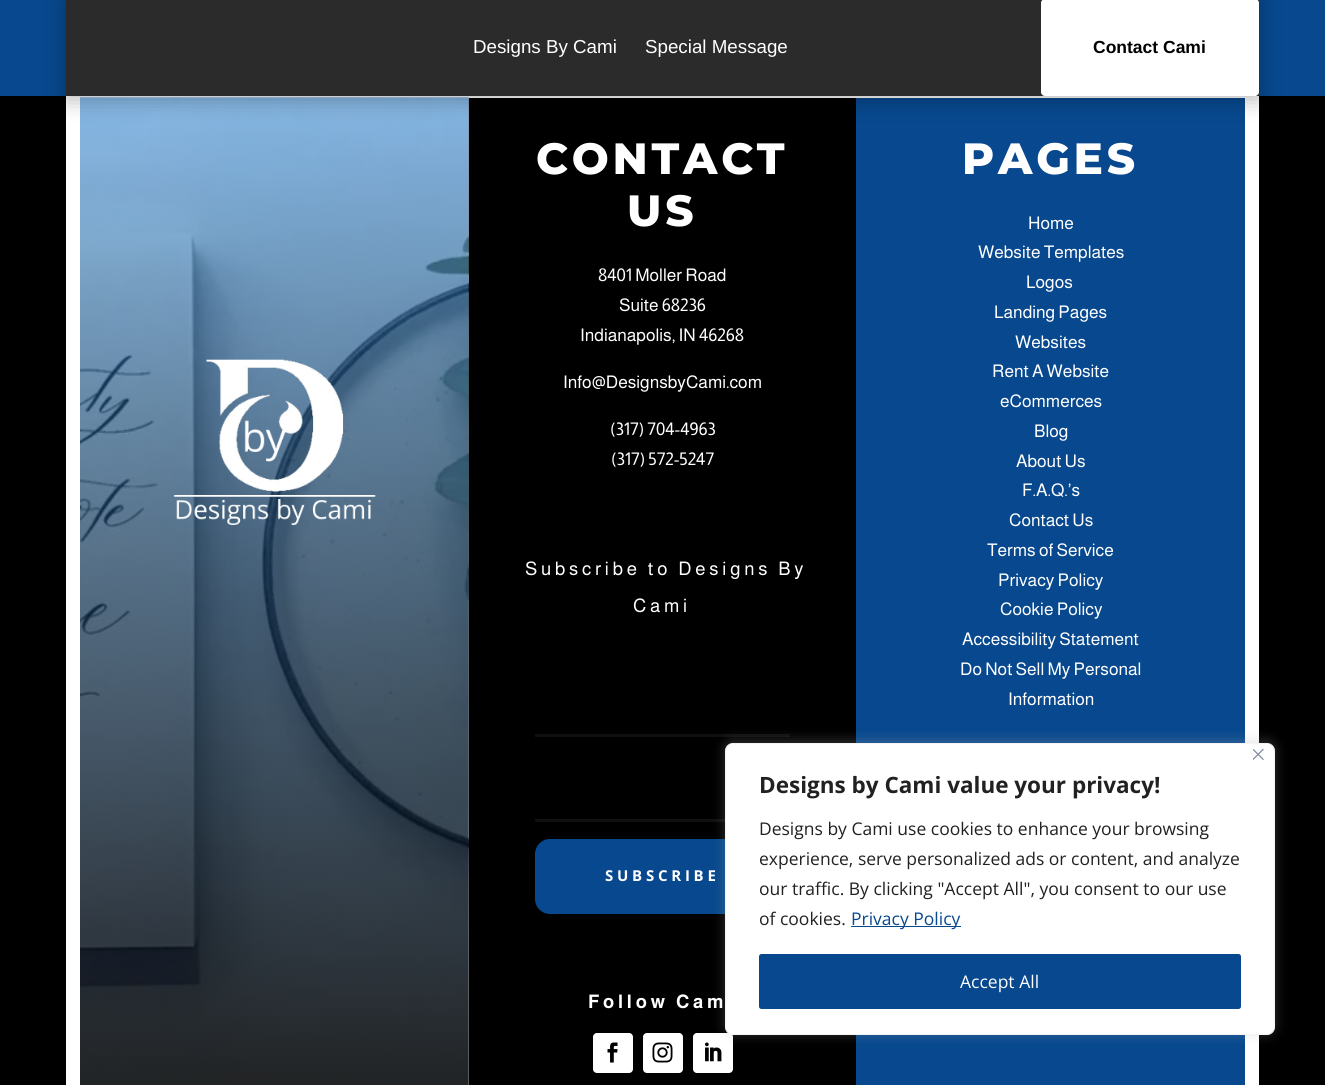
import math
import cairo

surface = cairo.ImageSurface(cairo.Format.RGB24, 1325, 1085)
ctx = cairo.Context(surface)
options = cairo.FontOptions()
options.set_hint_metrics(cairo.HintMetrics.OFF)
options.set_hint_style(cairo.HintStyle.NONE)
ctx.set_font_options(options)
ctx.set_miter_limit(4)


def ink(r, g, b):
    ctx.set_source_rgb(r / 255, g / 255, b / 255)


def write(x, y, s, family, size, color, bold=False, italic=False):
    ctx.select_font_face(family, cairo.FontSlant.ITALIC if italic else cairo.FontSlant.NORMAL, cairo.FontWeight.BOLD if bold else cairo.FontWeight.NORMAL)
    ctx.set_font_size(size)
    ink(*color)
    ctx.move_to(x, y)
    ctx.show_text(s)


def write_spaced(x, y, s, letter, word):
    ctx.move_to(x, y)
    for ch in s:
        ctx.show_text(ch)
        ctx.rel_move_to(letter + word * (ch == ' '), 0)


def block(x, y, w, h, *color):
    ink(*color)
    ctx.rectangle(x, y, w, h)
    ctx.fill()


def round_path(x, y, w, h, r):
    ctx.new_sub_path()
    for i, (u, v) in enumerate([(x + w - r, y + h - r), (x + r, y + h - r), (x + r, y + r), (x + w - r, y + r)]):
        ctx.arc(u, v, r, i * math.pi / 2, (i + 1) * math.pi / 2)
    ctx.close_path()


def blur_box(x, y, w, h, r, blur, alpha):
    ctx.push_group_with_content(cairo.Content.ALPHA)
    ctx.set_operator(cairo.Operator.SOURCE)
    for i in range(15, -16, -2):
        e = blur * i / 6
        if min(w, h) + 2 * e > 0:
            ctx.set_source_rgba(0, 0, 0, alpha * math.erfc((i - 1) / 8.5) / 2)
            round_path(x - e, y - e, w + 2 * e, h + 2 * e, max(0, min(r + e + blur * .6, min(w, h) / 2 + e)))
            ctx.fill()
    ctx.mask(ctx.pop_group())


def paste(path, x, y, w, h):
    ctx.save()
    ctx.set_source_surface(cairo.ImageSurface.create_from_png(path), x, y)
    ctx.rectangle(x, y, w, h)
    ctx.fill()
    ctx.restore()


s1 = dict(family="Liberation Sans", size=18.75, color=(255, 255, 255))
s2 = dict(family="Liberation Sans", size=17.5, color=(0, 0, 0), bold=True)
s3 = dict(family="Almarai", size=17.5, color=(255, 255, 255))
s4 = dict(family="Open Sans", size=22.5, color=(33, 33, 33), bold=True)
s5 = dict(family="Open Sans", size=17.5, color=(33, 33, 33))
s6 = dict(family="Open Sans", size=17.5, color=(7, 72, 142))
s7 = dict(family="Open Sans", size=17.5, color=(255, 255, 255))

ink(0, 0, 0)
ctx.paint()
ctx.rectangle(73, 91, 1179, 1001)
ink(255, 255, 255)
ctx.set_line_width(14)
ctx.stroke()
block(0, 0, 1325, 96, 7, 72, 142)
paste("pic1.png", 80, 97, 389, 988)
block(856, 98, 389, 987, 7, 72, 142)
ink(0, 0, 0)
blur_box(66, 1, 1193, 98, 0, 11, 0.3)
block(66, 0, 1193, 96, 43, 43, 43)
write(473, 53, "Designs By Cami", **s1)
write(645, 53, "Special Message", **s1)
round_path(1041, -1, 218, 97, 4)
ctx.fill()
write(1093, 53, "Contact Cami", **s2)
paste("pic2.png", 173, 359, 203, 166)
ctx.select_font_face("Montserrat Thin")
ctx.set_font_size(43.75)
ink(255, 255, 255)
write_spaced(536, 174, "CONTACT", 3.75, 0)
write_spaced(627, 226, "US", 3.75, 0)
write(598, 281, "8401 Moller Road", **s3)
write(619, 311, "Suite 68236", **s3)
write(580, 341, "Indianapolis, IN 46268", **s3)
write(563, 388, "Info@DesignsbyCami.com", **s3)
write(610, 435, "(317) 704-4963", **s3)
write(611, 465, "(317) 572-5247", **s3)
ctx.set_font_size(18.75)
write_spaced(525, 575, "Subscribe to Designs By", 3.75, 0)
write_spaced(633, 612, "Cami", 3.75, 0)
block(535, 734, 255, 3, 15, 15, 15)
block(535, 819, 190, 3, 15, 15, 15)
ink(7, 72, 142)
round_path(535, 839, 255, 75, 15)
ctx.fill()
ctx.select_font_face("Open Sans", cairo.FontSlant.NORMAL, cairo.FontWeight.BOLD)
ctx.set_font_size(15)
ink(255, 255, 255)
write_spaced(605, 881, "SUBSCRIBE", 3.75, 0)
ctx.select_font_face("Almarai", cairo.FontSlant.NORMAL, cairo.FontWeight.BOLD)
ctx.set_font_size(18.75)
write_spaced(588, 1008, "Follow Cam", 3.75, 0)
round_path(593, 1033, 40, 40, 4)
ctx.fill()
paste("pic3.png", 607, 1042, 11, 21)
round_path(643, 1033, 40, 40, 4)
ctx.fill()
paste("pic4.png", 652, 1042, 21, 21)
round_path(693, 1033, 40, 40, 4)
ctx.fill()
paste("pic5.png", 705, 1042, 17, 20)
ctx.select_font_face("Montserrat Thin")
ctx.set_font_size(43.75)
write_spaced(962, 174, "PAGES", 3.75, 0)
write(1028, 229, "Home", **s3)
write(978, 258, "Website Templates", **s3)
write(1026, 288, "Logos", **s3)
write(994, 318, "Landing Pages", **s3)
write(1015, 348, "Websites", **s3)
write(992, 377, "Rent A Website", **s3)
write(1000, 407, "eCommerces", **s3)
write(1034, 437, "Blog", **s3)
write(1016, 467, "About Us", **s3)
write(1022, 496, "F.A.Q.’s", **s3)
write(1009, 526, "Contact Us", **s3)
write(987, 556, "Terms of Service", **s3)
write(998, 586, "Privacy Policy", **s3)
write(1000, 615, "Cookie Policy", **s3)
write(962, 645, "Accessibility Statement", **s3)
write(960, 675, "Do Not Sell My Personal", **s3)
write(1008, 705, "Information", **s3)
ink(172, 171, 171)
blur_box(725, 741, 550, 293, 8, 6, 0.3)
ink(255, 255, 255)
round_path(725.5, 743.5, 549, 291, 7.5)
ctx.fill_preserve()
ink(244, 244, 244)
ctx.set_line_width(1)
ctx.stroke()
paste("pic6.png", 1253, 749, 11, 11)
write(759, 793, "Designs by Cami value your privacy!", **s4)
write(759, 835, "Designs by Cami use cookies to enhance your browsing", **s5)
write(759, 865, "experience, serve personalized ads or content, and analyze", **s5)
write(759, 895, "our traffic. By clicking \"Accept All\", you consent to our use", **s5)
write(759, 925, "of cookies.", **s5)
block(851, 926, 110, 1, 7, 72, 142)
write(851, 925, "Privacy Policy", **s6)
round_path(760.5, 955.5, 479, 52, 1)
ctx.fill_preserve()
ctx.set_line_width(3)
ctx.stroke()
write(960, 988, "Accept All", **s7)
surface.write_to_png("screenshot.png")
